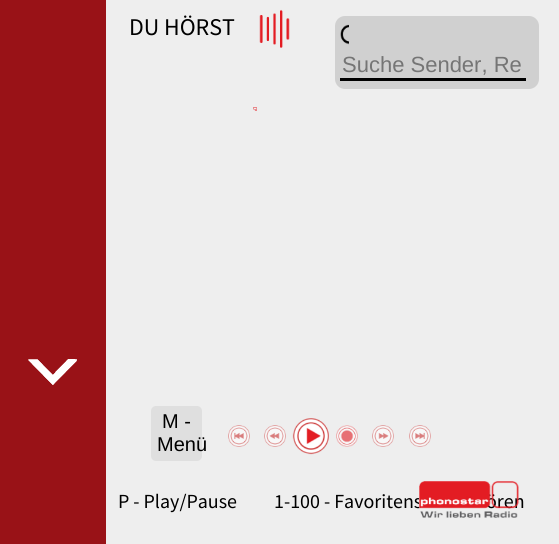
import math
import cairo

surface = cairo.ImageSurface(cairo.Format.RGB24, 559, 544)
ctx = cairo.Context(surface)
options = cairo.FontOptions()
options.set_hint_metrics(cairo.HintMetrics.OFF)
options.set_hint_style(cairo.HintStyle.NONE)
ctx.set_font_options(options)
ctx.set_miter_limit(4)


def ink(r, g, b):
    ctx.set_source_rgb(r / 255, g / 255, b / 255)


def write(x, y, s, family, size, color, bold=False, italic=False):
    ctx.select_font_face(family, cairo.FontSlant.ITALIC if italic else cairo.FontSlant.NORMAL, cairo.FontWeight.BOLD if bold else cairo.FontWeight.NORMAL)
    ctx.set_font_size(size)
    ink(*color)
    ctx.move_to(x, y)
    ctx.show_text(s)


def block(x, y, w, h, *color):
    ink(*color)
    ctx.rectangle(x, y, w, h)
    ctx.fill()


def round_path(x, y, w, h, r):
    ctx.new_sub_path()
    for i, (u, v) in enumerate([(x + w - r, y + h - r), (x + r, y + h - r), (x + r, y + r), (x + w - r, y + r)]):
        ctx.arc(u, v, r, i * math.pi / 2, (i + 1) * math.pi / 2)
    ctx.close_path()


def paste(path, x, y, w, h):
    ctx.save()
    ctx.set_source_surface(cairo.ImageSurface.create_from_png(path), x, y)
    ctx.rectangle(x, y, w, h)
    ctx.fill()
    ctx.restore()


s1 = dict(family="Source Sans Pro", size=24, color=(0, 0, 0))
s2 = dict(family="Liberation Sans", size=22, color=(117, 117, 117))
s3 = dict(family="Liberation Sans", size=20, color=(0, 0, 0))
s4 = dict(family="Source Sans Pro", size=20, color=(0, 0, 0))

ink(238, 238, 238)
ctx.paint()
block(0, 0, 106, 544, 153, 18, 23)
paste("pic1.png", 28, 359, 49, 26)
write(129, 35, "DU HÖRST", **s1)
paste("pic2.png", 259, 9, 31, 39)
ink(208, 208, 208)
round_path(335, 16, 204, 73, 10)
ctx.fill()
paste("pic3.png", 340, 24, 9, 21)
block(340, 78, 186, 3, 0, 0, 0)
write(342, 72, "Suche Sender, Re", **s2)
paste("pic4.png", 253, 107, 4, 4)
ink(223, 223, 223)
round_path(151, 406, 51, 55, 5)
ctx.fill()
write(162, 428, "M -", **s3)
write(157, 451, "Menü", **s3)
paste("pic5.png", 228, 425, 22, 22)
paste("pic6.png", 264, 425, 22, 22)
paste("pic7.png", 292, 418, 37, 37)
paste("pic8.png", 336, 425, 22, 22)
paste("pic9.png", 372, 425, 22, 22)
paste("pic10.png", 409, 425, 22, 22)
write(118, 508, "P - Play/Pause", **s4)
write(274, 508, "1-100 - Favoritens", **s4)
write(486, 508, "ören", **s4)
paste("pic11.png", 419, 481, 100, 37)
surface.write_to_png("screenshot.png")
